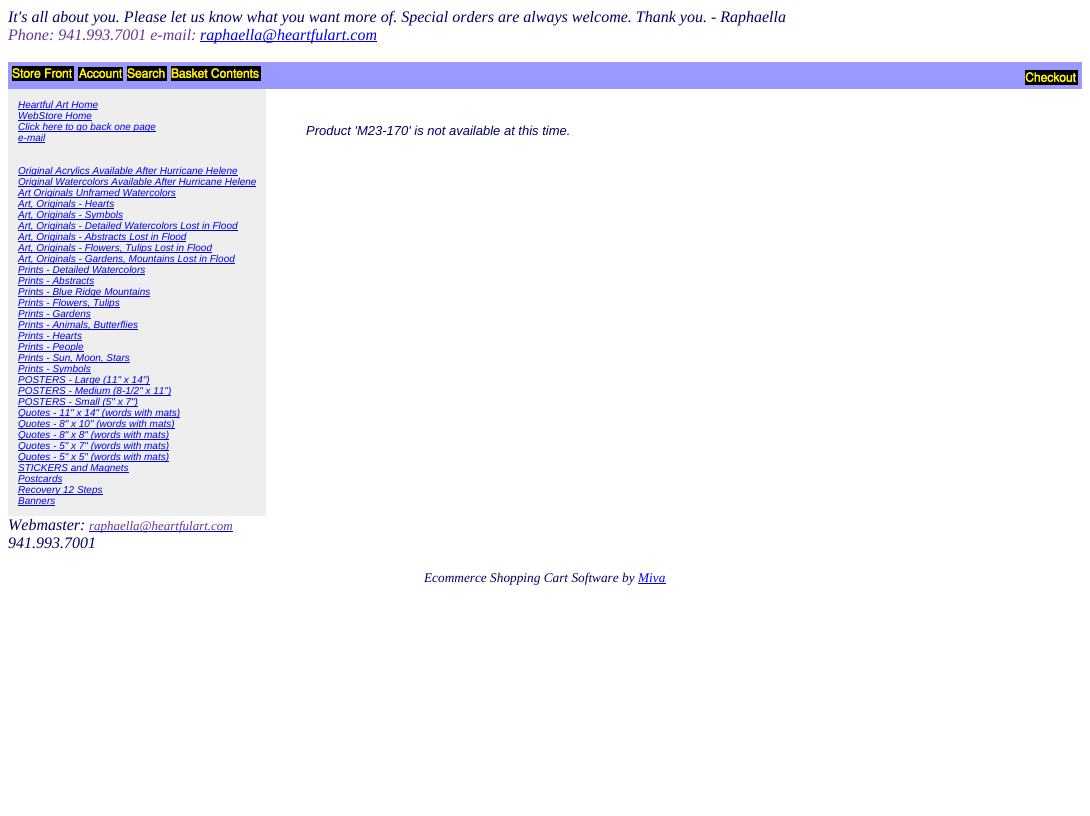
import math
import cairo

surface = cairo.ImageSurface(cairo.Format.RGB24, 1090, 816)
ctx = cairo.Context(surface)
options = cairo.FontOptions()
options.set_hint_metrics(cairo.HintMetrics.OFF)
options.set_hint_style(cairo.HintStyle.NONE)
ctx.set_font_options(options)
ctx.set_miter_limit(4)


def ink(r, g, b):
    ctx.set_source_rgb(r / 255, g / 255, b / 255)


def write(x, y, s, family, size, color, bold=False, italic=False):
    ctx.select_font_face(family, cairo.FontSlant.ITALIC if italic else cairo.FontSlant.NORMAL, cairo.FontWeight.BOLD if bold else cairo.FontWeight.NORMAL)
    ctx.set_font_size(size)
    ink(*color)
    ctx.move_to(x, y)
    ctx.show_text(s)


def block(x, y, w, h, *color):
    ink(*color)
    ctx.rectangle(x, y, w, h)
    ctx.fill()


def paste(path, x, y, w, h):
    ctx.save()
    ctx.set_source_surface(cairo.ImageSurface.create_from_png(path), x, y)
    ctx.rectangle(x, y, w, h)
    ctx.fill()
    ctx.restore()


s1 = dict(family="Liberation Serif", size=16, color=(0, 0, 102), italic=True)
s2 = dict(family="Liberation Serif", size=16, color=(102, 51, 153), italic=True)
s3 = dict(family="Liberation Serif", size=16, color=(0, 0, 238), italic=True)
s4 = dict(family="Liberation Sans", size=10, color=(0, 0, 238), italic=True)
s5 = dict(family="Liberation Sans", size=13, color=(0, 0, 102), italic=True)
s6 = dict(family="Liberation Serif", size=13, color=(102, 51, 153), italic=True)
s7 = dict(family="Liberation Serif", size=13.3, color=(0, 0, 102), italic=True)
s8 = dict(family="Liberation Serif", size=13.3, color=(0, 0, 238), italic=True)

ink(255, 255, 255)
ctx.paint()
write(8, 22, "It's all about you. Please let us know what you want more of. Special orders are always welcome. Thank you. - Raphaella", **s1)
write(8, 40, "Phone: 941.993.7001 e-mail:", **s2)
block(200, 41, 177, 1, 0, 0, 238)
write(200, 40, "raphaella@heartfulart.com", **s3)
block(8, 62, 1074, 27, 153, 153, 255)
paste("pic1.png", 12, 66, 62, 15)
paste("pic2.png", 78, 67, 45, 14)
paste("pic3.png", 127, 66, 40, 15)
paste("pic4.png", 171, 66, 90, 15)
paste("pic5.png", 1025, 70, 53, 15)
block(8, 89, 258, 427, 238, 238, 238)
write(18, 108, "Heartful Art Home", **s4)
block(18, 109, 80, 1, 0, 0, 238)
write(18, 119, "WebStore Home", **s4)
block(18, 120, 74, 1, 0, 0, 238)
block(18, 131, 138, 1, 0, 0, 238)
write(18, 130, "Click here to go back one page", **s4)
write(18, 141, "e-mail", **s4)
block(18, 142, 27, 1, 0, 0, 238)
block(18, 175, 220, 1, 0, 0, 238)
write(18, 174, "Original Acrylics Available After Hurricane Helene", **s4)
block(18, 186, 238, 1, 0, 0, 238)
write(18, 185, "Original Watercolors Available After Hurricane Helene", **s4)
block(18, 197, 158, 1, 0, 0, 238)
write(18, 196, "Art Originals Unframed Watercolors", **s4)
block(18, 208, 96, 1, 0, 0, 238)
write(18, 207, "Art, Originals - Hearts", **s4)
block(18, 219, 105, 1, 0, 0, 238)
write(18, 218, "Art, Originals - Symbols", **s4)
block(18, 230, 220, 1, 0, 0, 238)
write(18, 229, "Art, Originals - Detailed Watercolors Lost in Flood", **s4)
block(18, 241, 168, 1, 0, 0, 238)
write(18, 240, "Art, Originals - Abstracts Lost in Flood", **s4)
block(18, 252, 194, 1, 0, 0, 238)
write(18, 251, "Art, Originals - Flowers, Tulips Lost in Flood", **s4)
block(18, 263, 217, 1, 0, 0, 238)
write(18, 262, "Art, Originals - Gardens, Mountains Lost in Flood", **s4)
write(18, 273, "Prints - Detailed Watercolors", **s4)
block(18, 274, 127, 1, 0, 0, 238)
write(18, 284, "Prints - Abstracts", **s4)
block(18, 285, 76, 1, 0, 0, 238)
block(18, 296, 132, 1, 0, 0, 238)
write(18, 295, "Prints - Blue Ridge Mountains", **s4)
block(18, 307, 102, 1, 0, 0, 238)
write(18, 306, "Prints - Flowers, Tulips", **s4)
write(18, 317, "Prints - Gardens", **s4)
block(18, 318, 73, 1, 0, 0, 238)
block(18, 329, 120, 1, 0, 0, 238)
write(18, 328, "Prints - Animals, Butterflies", **s4)
write(18, 339, "Prints - Hearts", **s4)
block(18, 340, 64, 1, 0, 0, 238)
block(18, 351, 66, 1, 0, 0, 238)
write(18, 350, "Prints - People", **s4)
block(18, 362, 112, 1, 0, 0, 238)
write(18, 361, "Prints - Sun, Moon, Stars", **s4)
block(18, 373, 73, 1, 0, 0, 238)
write(18, 372, "Prints - Symbols", **s4)
block(18, 384, 132, 1, 0, 0, 238)
write(18, 383, "POSTERS - Large (11\" x 14\")", **s4)
block(18, 395, 153, 1, 0, 0, 238)
write(18, 394, "POSTERS - Medium (8-1/2\" x 11\")", **s4)
block(18, 406, 120, 1, 0, 0, 238)
write(18, 405, "POSTERS - Small (5\" x 7\")", **s4)
block(18, 417, 162, 1, 0, 0, 238)
write(18, 416, "Quotes - 11\" x 14\" (words with mats)", **s4)
block(18, 428, 157, 1, 0, 0, 238)
write(18, 427, "Quotes - 8\" x 10\" (words with mats)", **s4)
block(18, 439, 151, 1, 0, 0, 238)
write(18, 438, "Quotes - 8\" x 8\" (words with mats)", **s4)
block(18, 450, 151, 1, 0, 0, 238)
write(18, 449, "Quotes - 5\" x 7\" (words with mats)", **s4)
block(18, 461, 151, 1, 0, 0, 238)
write(18, 460, "Quotes - 5\" x 5\" (words with mats)", **s4)
block(18, 472, 111, 1, 0, 0, 238)
write(18, 471, "STICKERS and Magnets", **s4)
write(18, 482, "Postcards", **s4)
block(18, 483, 44, 1, 0, 0, 238)
block(18, 494, 85, 1, 0, 0, 238)
write(18, 493, "Recovery 12 Steps", **s4)
write(18, 504, "Banners", **s4)
block(18, 505, 37, 1, 0, 0, 238)
write(306, 135, "Product 'M23-170' is not available at this time.", **s5)
write(8, 530, "Webmaster:", **s1)
block(89, 531, 144, 1, 0, 0, 238)
write(89, 530, "raphaella@heartfulart.com", **s6)
write(8, 548, "941.993.7001", **s1)
write(424, 582, "Ecommerce Shopping Cart Software by", **s7)
write(638, 582, "Miva", **s8)
block(638, 583, 28, 1, 0, 0, 238)
surface.write_to_png("screenshot.png")
